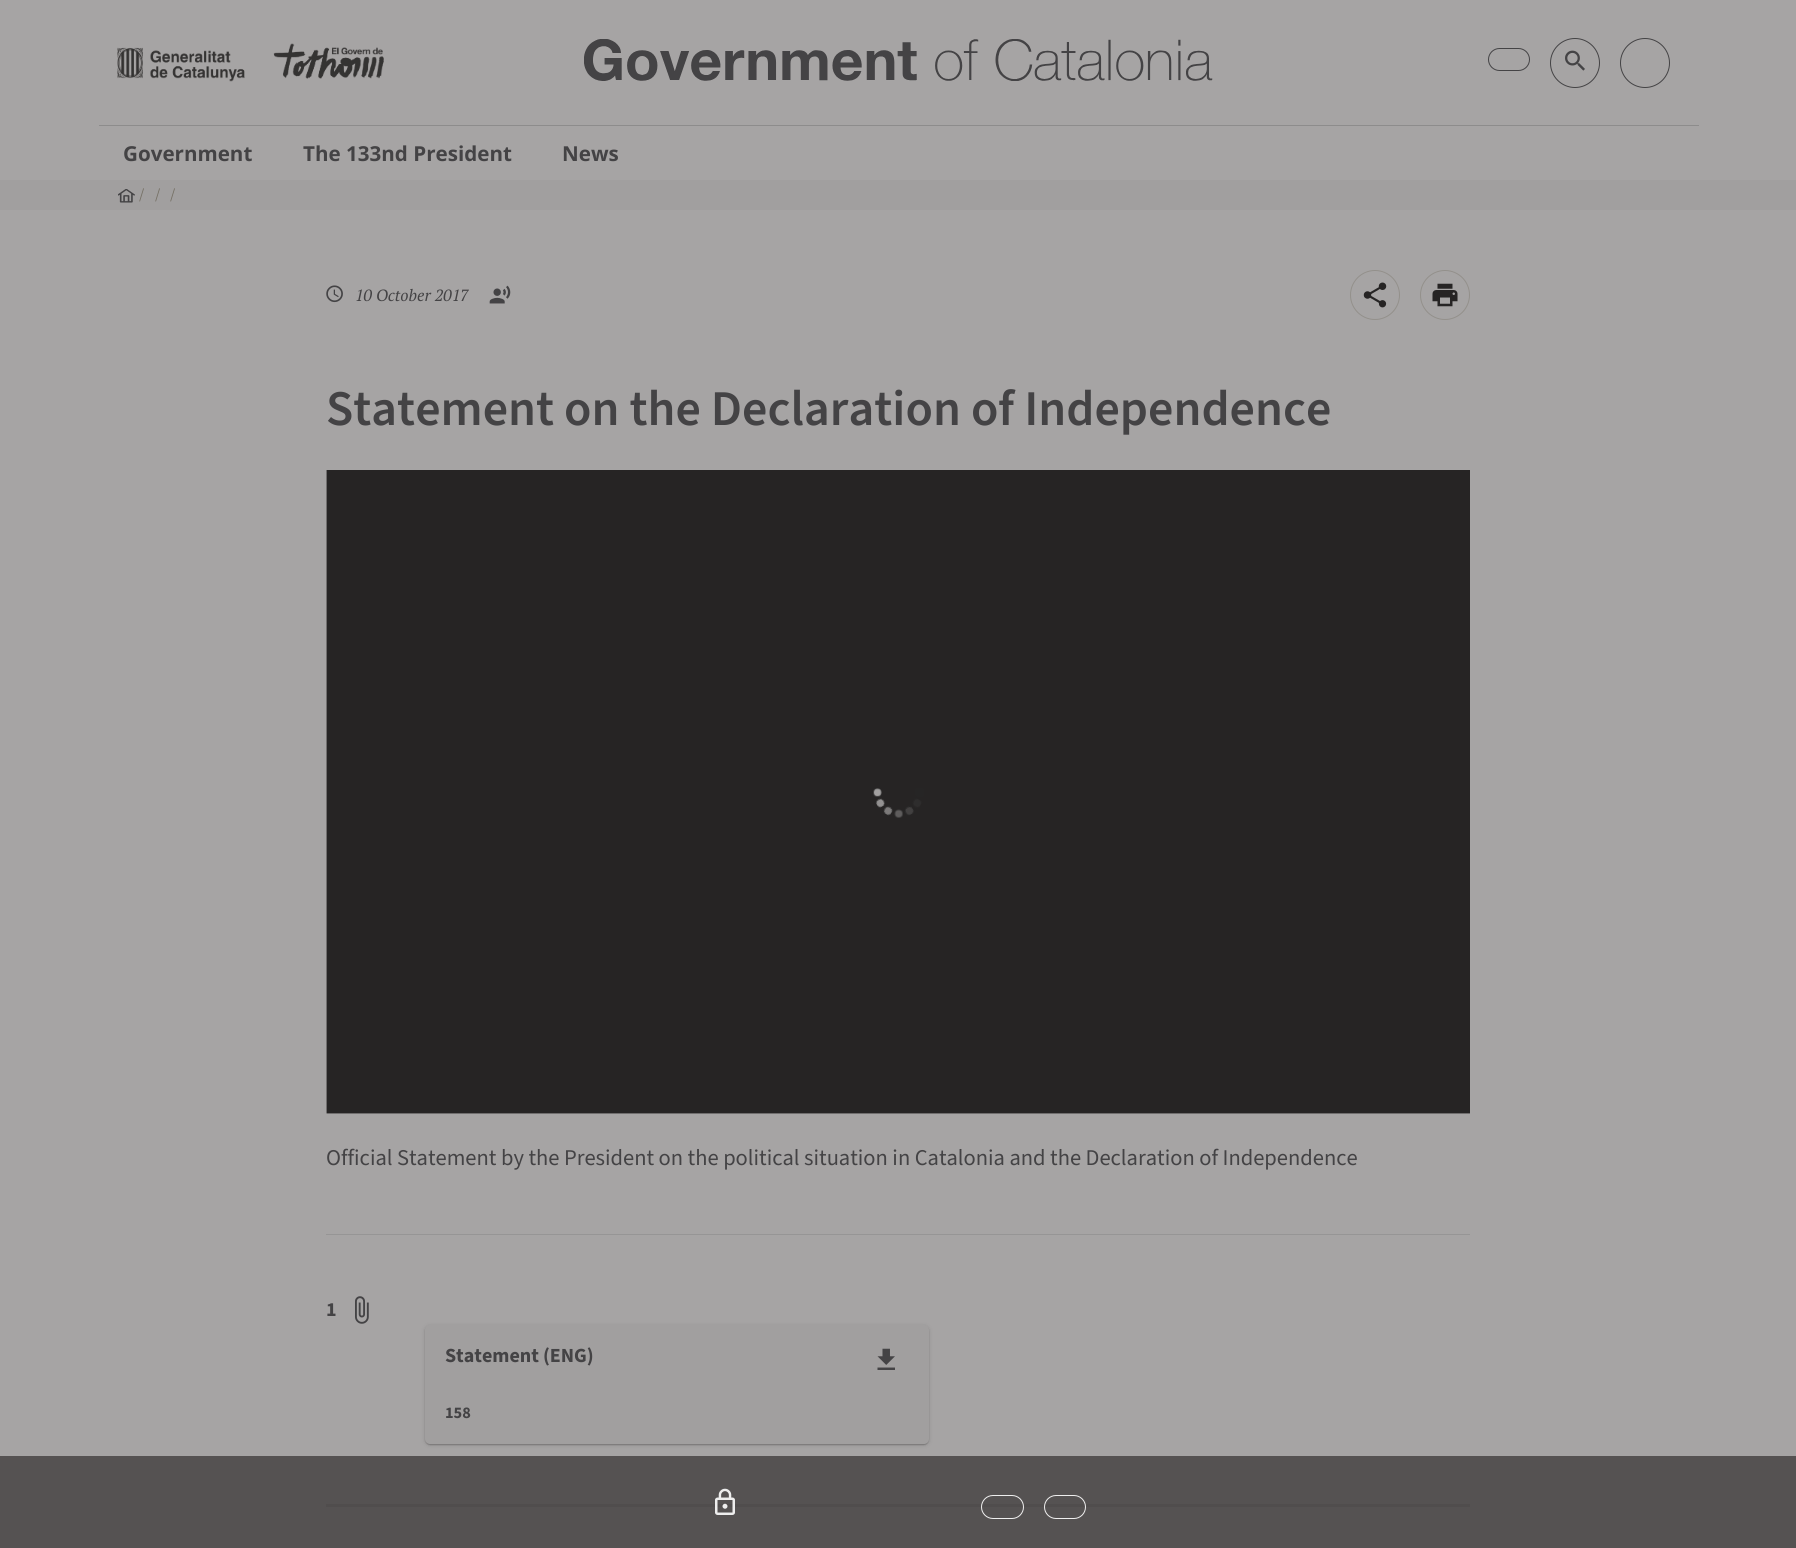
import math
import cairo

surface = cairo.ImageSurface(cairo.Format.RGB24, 1796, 1548)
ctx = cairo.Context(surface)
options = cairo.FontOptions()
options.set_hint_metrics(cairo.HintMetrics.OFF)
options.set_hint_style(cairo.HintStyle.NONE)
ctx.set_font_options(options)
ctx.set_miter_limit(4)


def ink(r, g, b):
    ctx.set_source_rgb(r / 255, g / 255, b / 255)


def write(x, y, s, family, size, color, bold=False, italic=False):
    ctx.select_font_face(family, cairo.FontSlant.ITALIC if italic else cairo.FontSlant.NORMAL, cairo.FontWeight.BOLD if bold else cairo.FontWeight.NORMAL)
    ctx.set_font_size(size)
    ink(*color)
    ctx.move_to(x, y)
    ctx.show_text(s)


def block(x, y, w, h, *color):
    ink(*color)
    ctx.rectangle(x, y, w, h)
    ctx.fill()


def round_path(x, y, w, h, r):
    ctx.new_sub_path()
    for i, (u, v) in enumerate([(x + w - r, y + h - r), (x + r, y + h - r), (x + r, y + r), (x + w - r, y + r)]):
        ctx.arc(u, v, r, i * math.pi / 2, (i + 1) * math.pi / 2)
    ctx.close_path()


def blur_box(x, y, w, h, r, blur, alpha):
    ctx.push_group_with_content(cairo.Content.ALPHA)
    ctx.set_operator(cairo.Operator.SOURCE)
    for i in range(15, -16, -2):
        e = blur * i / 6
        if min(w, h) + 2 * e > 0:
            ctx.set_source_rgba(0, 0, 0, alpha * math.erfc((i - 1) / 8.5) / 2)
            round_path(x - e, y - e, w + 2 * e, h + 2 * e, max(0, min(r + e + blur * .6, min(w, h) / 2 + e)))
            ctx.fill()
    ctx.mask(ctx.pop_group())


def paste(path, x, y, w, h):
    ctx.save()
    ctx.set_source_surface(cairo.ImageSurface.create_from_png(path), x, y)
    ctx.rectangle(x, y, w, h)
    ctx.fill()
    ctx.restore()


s1 = dict(family="Open Sans", size=20.6, color=(68, 67, 69), bold=True)
s2 = dict(family="Source Sans 3", size=15, color=(118, 113, 102))
s3 = dict(family="PT Serif", size=16.25, color=(68, 67, 69), italic=True)
s4 = dict(family="Source Sans 3 SemiBold", size=50, color=(68, 67, 69))
s5 = dict(family="Source Sans 3", size=22.5, color=(68, 67, 69))
s6 = dict(family="Source Sans 3", size=20, color=(68, 67, 69), bold=True)
s7 = dict(family="Source Sans 3", size=16.25, color=(68, 67, 69), bold=True)

ink(166, 164, 164)
ctx.paint()
block(0, 1456, 1796, 92, 85, 82, 82)
paste("pic1.png", 117, 43, 267, 39)
paste("pic2.png", 584, 39, 629, 42)
round_path(1488.5, 48.5, 41, 22, 11)
ink(68, 67, 69)
ctx.set_line_width(1)
ctx.stroke()
ctx.arc(1575, 63, 24.5, 0, 2 * math.pi)
ctx.stroke()
paste("pic3.png", 1565, 50, 20, 21)
ctx.arc(1645, 63, 24.5, 0, 2 * math.pi)
ctx.stroke()
block(99, 125, 1600, 1, 141, 140, 140)
write(123, 161, "Government", **s1)
write(303, 161, "The 133nd President", **s1)
write(562, 161, "News", **s1)
block(0, 180, 1796, 30, 161, 159, 159)
paste("pic4.png", 118, 189, 17, 14)
write(139, 199, "/", **s2)
write(155, 199, "/", **s2)
write(170, 199, "/", **s2)
paste("pic5.png", 326, 285, 17, 18)
write(355, 301, "10 October 2017", **s3)
paste("pic6.png", 489, 285, 22, 19)
ctx.arc(1375, 295, 24.5, 0, 2 * math.pi)
ink(147, 144, 139)
ctx.stroke()
paste("pic7.png", 1363, 282, 24, 26)
ctx.arc(1445, 295, 24.5, 0, 2 * math.pi)
ctx.stroke()
paste("pic8.png", 1432, 283, 26, 24)
write(326, 425, "Statement on the Declaration of Independence", **s4)
paste("pic9.png", 326, 470, 1144, 644)
write(326, 1165, "Official Statement by the President on the political situation in Catalonia and the Declaration of Independence", **s5)
block(326, 1234, 1144, 1, 150, 149, 149)
write(326, 1316, "1", **s6)
paste("pic10.png", 355, 1296, 14, 28)
ink(38, 37, 37)
blur_box(426, 1329, 502, 116, 4, 0.5, 0.12)
blur_box(425, 1326, 504, 119, 5, 0.5, 0.14)
blur_box(425, 1326, 504, 119, 5, 2, 0.2)
ink(161, 159, 159)
round_path(425, 1325, 504, 119, 5)
ctx.fill()
write(445, 1362, "Statement (ENG)", **s6)
paste("pic11.png", 877, 1348, 18, 22)
write(445, 1418, "158", **s7)
block(326, 1504, 1144, 3, 80, 77, 77)
paste("pic12.png", 715, 1488, 20, 27)
round_path(981.5, 1495.5, 42, 23, 11.5)
ctx.set_source_rgba(1, 1, 1, 0.9)
ctx.stroke()
round_path(1044.5, 1495.5, 41, 23, 11.5)
ctx.stroke()
surface.write_to_png("screenshot.png")
